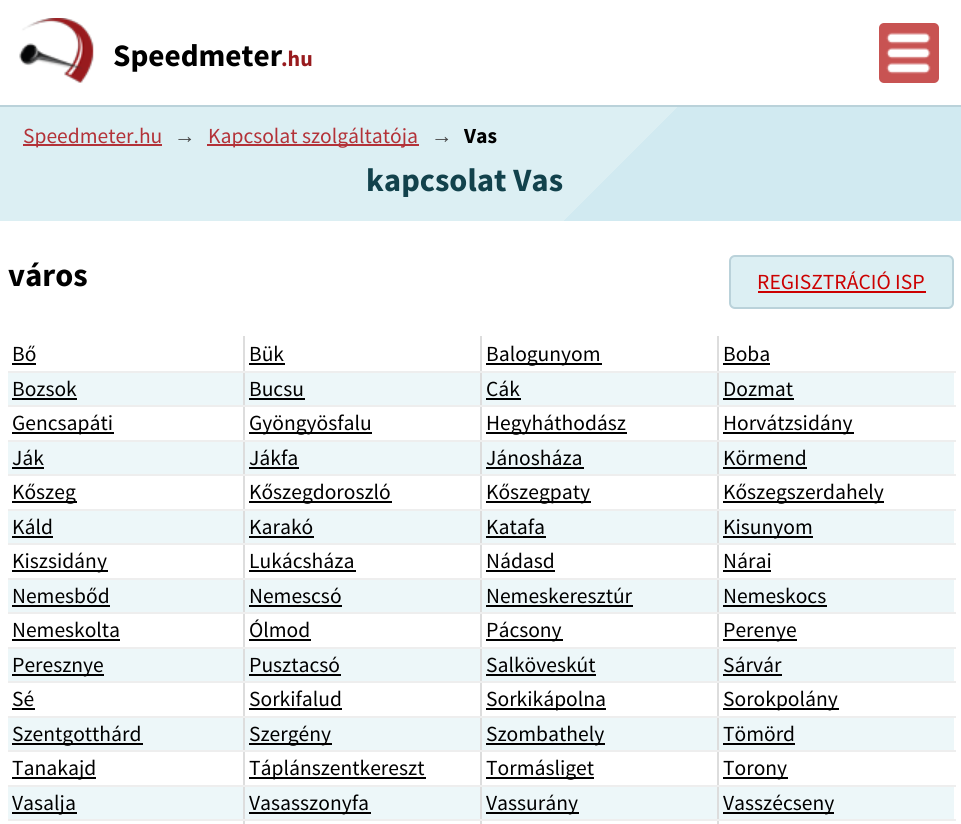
import math
import cairo

surface = cairo.ImageSurface(cairo.Format.RGB24, 961, 824)
ctx = cairo.Context(surface)
options = cairo.FontOptions()
options.set_hint_metrics(cairo.HintMetrics.OFF)
options.set_hint_style(cairo.HintStyle.NONE)
ctx.set_font_options(options)
ctx.set_miter_limit(4)


def ink(r, g, b):
    ctx.set_source_rgb(r / 255, g / 255, b / 255)


def write(x, y, s, family, size, color, bold=False, italic=False):
    ctx.select_font_face(family, cairo.FontSlant.ITALIC if italic else cairo.FontSlant.NORMAL, cairo.FontWeight.BOLD if bold else cairo.FontWeight.NORMAL)
    ctx.set_font_size(size)
    ink(*color)
    ctx.move_to(x, y)
    ctx.show_text(s)


def block(x, y, w, h, *color):
    ink(*color)
    ctx.rectangle(x, y, w, h)
    ctx.fill()


def round_path(x, y, w, h, r):
    ctx.new_sub_path()
    for i, (u, v) in enumerate([(x + w - r, y + h - r), (x + r, y + h - r), (x + r, y + r), (x + w - r, y + r)]):
        ctx.arc(u, v, r, i * math.pi / 2, (i + 1) * math.pi / 2)
    ctx.close_path()


def paste(path, x, y, w, h):
    ctx.save()
    ctx.set_source_surface(cairo.ImageSurface.create_from_png(path), x, y)
    ctx.rectangle(x, y, w, h)
    ctx.fill()
    ctx.restore()


s1 = dict(family="Source Sans Pro", size=31.25, color=(0, 0, 0), bold=True)
s2 = dict(family="Source Sans Pro", size=22, color=(152, 27, 30), bold=True)
s3 = dict(family="Source Sans Pro", size=21.5, color=(179, 50, 56))
s4 = dict(family="Liberation Sans", size=21.5, color=(68, 68, 68))
s5 = dict(family="Source Sans Pro", size=21.5, color=(0, 0, 0), bold=True)
s6 = dict(family="Source Sans Pro", size=32.5, color=(18, 66, 76), bold=True)
s7 = dict(family="Source Sans Pro", size=32.5, color=(0, 0, 0), bold=True)
s8 = dict(family="Source Sans Pro", size=21.5, color=(204, 0, 0))
s9 = dict(family="Source Sans Pro", size=21.5, color=(0, 0, 0))

ink(255, 255, 255)
ctx.paint()
paste("pic1.png", 19, 18, 75, 65)
write(113, 66, "Speedmeter", **s1)
write(281, 66, ".hu", **s2)
ink(200, 83, 82)
round_path(879, 23, 60, 60, 5)
ctx.fill()
paste("pic2.png", 886, 32, 45, 42)
gradient = cairo.LinearGradient(212, -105, 750, 432)
gradient.add_color_stop_rgba(0, 0.863, 0.937, 0.953, 1)
gradient.add_color_stop_rgba(0.63, 0.863, 0.937, 0.953, 1)
gradient.add_color_stop_rgba(0.63, 0.82, 0.918, 0.945, 1)
gradient.add_color_stop_rgba(1, 0.82, 0.918, 0.945, 1)
ctx.set_source(gradient)
ctx.rectangle(0, 107, 961, 114)
ctx.fill()
block(0, 105, 961, 2, 186, 210, 218)
block(23, 144, 139, 2, 179, 50, 56)
write(23, 143, "Speedmeter.hu", **s3)
write(174, 143, "→", **s4)
block(207, 144, 212, 2, 179, 50, 56)
write(208, 143, "Kapcsolat szolgáltatója", **s3)
write(431, 143, "→", **s4)
write(464, 143, "Vas", **s5)
write(366, 191, "kapcsolat Vas", **s6)
write(8, 286, "város", **s7)
ink(220, 239, 243)
round_path(730, 256, 223, 52, 5)
ctx.fill_preserve()
ink(186, 210, 218)
ctx.stroke()
write(757, 289, "REGISZTRÁCIÓ ISP", **s8)
block(758, 291, 168, 2, 204, 0, 0)
block(717, 819, 2, 5, 221, 221, 221)
block(717, 819, 239, 2, 238, 238, 238)
block(717, 785, 2, 36, 221, 221, 221)
block(717, 785, 239, 2, 238, 238, 238)
block(717, 750, 2, 36, 221, 221, 221)
block(717, 750, 239, 2, 238, 238, 238)
block(717, 716, 2, 36, 221, 221, 221)
block(717, 716, 239, 2, 238, 238, 238)
block(717, 681, 2, 36, 221, 221, 221)
block(717, 681, 239, 2, 238, 238, 238)
block(717, 647, 2, 36, 221, 221, 221)
block(717, 647, 239, 2, 238, 238, 238)
block(717, 612, 2, 36, 221, 221, 221)
block(717, 612, 239, 2, 238, 238, 238)
block(717, 578, 2, 36, 221, 221, 221)
block(717, 578, 239, 2, 238, 238, 238)
block(717, 543, 2, 36, 221, 221, 221)
block(717, 543, 239, 2, 238, 238, 238)
block(717, 509, 2, 36, 221, 221, 221)
block(717, 509, 239, 2, 238, 238, 238)
block(717, 474, 2, 36, 221, 221, 221)
block(717, 474, 239, 2, 238, 238, 238)
block(717, 440, 2, 36, 221, 221, 221)
block(717, 440, 239, 2, 238, 238, 238)
block(717, 405, 2, 36, 221, 221, 221)
block(717, 405, 239, 2, 238, 238, 238)
block(717, 371, 2, 36, 221, 221, 221)
block(717, 371, 239, 2, 238, 238, 238)
block(717, 336, 2, 36, 221, 221, 221)
block(480, 819, 2, 5, 221, 221, 221)
block(480, 819, 239, 2, 238, 238, 238)
block(480, 785, 2, 36, 221, 221, 221)
block(480, 785, 239, 2, 238, 238, 238)
block(480, 750, 2, 36, 221, 221, 221)
block(480, 750, 239, 2, 238, 238, 238)
block(480, 716, 2, 36, 221, 221, 221)
block(480, 716, 239, 2, 238, 238, 238)
block(480, 681, 2, 36, 221, 221, 221)
block(480, 681, 239, 2, 238, 238, 238)
block(480, 647, 2, 36, 221, 221, 221)
block(480, 647, 239, 2, 238, 238, 238)
block(480, 612, 2, 36, 221, 221, 221)
block(480, 612, 239, 2, 238, 238, 238)
block(480, 578, 2, 36, 221, 221, 221)
block(480, 578, 239, 2, 238, 238, 238)
block(480, 543, 2, 36, 221, 221, 221)
block(480, 543, 239, 2, 238, 238, 238)
block(480, 509, 2, 36, 221, 221, 221)
block(480, 509, 239, 2, 238, 238, 238)
block(480, 474, 2, 36, 221, 221, 221)
block(480, 474, 239, 2, 238, 238, 238)
block(480, 440, 2, 36, 221, 221, 221)
block(480, 440, 239, 2, 238, 238, 238)
block(480, 405, 2, 36, 221, 221, 221)
block(480, 405, 239, 2, 238, 238, 238)
block(480, 371, 2, 36, 221, 221, 221)
block(480, 371, 239, 2, 238, 238, 238)
block(480, 336, 2, 36, 221, 221, 221)
block(243, 819, 2, 5, 221, 221, 221)
block(243, 819, 239, 2, 238, 238, 238)
block(243, 785, 2, 36, 221, 221, 221)
block(243, 785, 239, 2, 238, 238, 238)
block(243, 750, 2, 36, 221, 221, 221)
block(243, 750, 239, 2, 238, 238, 238)
block(243, 716, 2, 36, 221, 221, 221)
block(243, 716, 239, 2, 238, 238, 238)
block(243, 681, 2, 36, 221, 221, 221)
block(243, 681, 239, 2, 238, 238, 238)
block(243, 647, 2, 36, 221, 221, 221)
block(243, 647, 239, 2, 238, 238, 238)
block(243, 612, 2, 36, 221, 221, 221)
block(243, 612, 239, 2, 238, 238, 238)
block(243, 578, 2, 36, 221, 221, 221)
block(243, 578, 239, 2, 238, 238, 238)
block(243, 543, 2, 36, 221, 221, 221)
block(243, 543, 239, 2, 238, 238, 238)
block(243, 509, 2, 36, 221, 221, 221)
block(243, 509, 239, 2, 238, 238, 238)
block(243, 474, 2, 36, 221, 221, 221)
block(243, 474, 239, 2, 238, 238, 238)
block(243, 440, 2, 36, 221, 221, 221)
block(243, 440, 239, 2, 238, 238, 238)
block(243, 405, 2, 36, 221, 221, 221)
block(243, 405, 239, 2, 238, 238, 238)
block(243, 371, 2, 36, 221, 221, 221)
block(243, 371, 239, 2, 238, 238, 238)
block(243, 336, 2, 36, 221, 221, 221)
block(8, 371, 237, 2, 238, 238, 238)
write(12, 361, "Bő", **s9)
block(12, 363, 24, 2, 0, 0, 0)
write(249, 361, "Bük", **s9)
block(249, 363, 36, 2, 0, 0, 0)
block(486, 363, 116, 2, 0, 0, 0)
write(486, 361, "Balogunyom", **s9)
write(723, 361, "Boba", **s9)
block(723, 363, 47, 2, 0, 0, 0)
block(8, 373, 235, 32, 237, 247, 249)
block(8, 405, 237, 2, 238, 238, 238)
write(12, 396, "Bozsok", **s9)
block(12, 398, 65, 2, 0, 0, 0)
block(245, 373, 235, 32, 237, 247, 249)
write(249, 396, "Bucsu", **s9)
block(249, 398, 56, 2, 0, 0, 0)
block(482, 373, 235, 32, 237, 247, 249)
write(486, 396, "Cák", **s9)
block(486, 398, 35, 2, 0, 0, 0)
block(719, 373, 235, 32, 237, 247, 249)
write(723, 396, "Dozmat", **s9)
block(723, 398, 71, 2, 0, 0, 0)
block(8, 440, 237, 2, 238, 238, 238)
block(12, 432, 102, 2, 0, 0, 0)
write(12, 430, "Gencsapáti", **s9)
block(249, 432, 123, 2, 0, 0, 0)
write(249, 430, "Gyöngyösfalu", **s9)
block(486, 432, 141, 2, 0, 0, 0)
write(486, 430, "Hegyháthodász", **s9)
block(723, 432, 131, 2, 0, 0, 0)
write(723, 430, "Horvátzsidány", **s9)
block(8, 442, 235, 32, 237, 247, 249)
block(8, 474, 237, 2, 238, 238, 238)
write(12, 465, "Ják", **s9)
block(12, 467, 32, 2, 0, 0, 0)
block(245, 442, 235, 32, 237, 247, 249)
write(249, 465, "Jákfa", **s9)
block(249, 467, 50, 2, 0, 0, 0)
block(482, 442, 235, 32, 237, 247, 249)
write(486, 465, "Jánosháza", **s9)
block(486, 467, 98, 2, 0, 0, 0)
block(719, 442, 235, 32, 237, 247, 249)
write(723, 465, "Körmend", **s9)
block(723, 467, 84, 2, 0, 0, 0)
block(8, 509, 237, 2, 238, 238, 238)
block(12, 501, 65, 2, 0, 0, 0)
write(12, 499, "Kőszeg", **s9)
block(249, 501, 143, 2, 0, 0, 0)
write(249, 499, "Kőszegdoroszló", **s9)
block(486, 501, 105, 2, 0, 0, 0)
write(486, 499, "Kőszegpaty", **s9)
block(723, 501, 161, 2, 0, 0, 0)
write(723, 499, "Kőszegszerdahely", **s9)
block(8, 511, 235, 32, 237, 247, 249)
block(8, 543, 237, 2, 238, 238, 238)
write(12, 534, "Káld", **s9)
block(12, 536, 41, 2, 0, 0, 0)
block(245, 511, 235, 32, 237, 247, 249)
write(249, 534, "Karakó", **s9)
block(249, 536, 65, 2, 0, 0, 0)
block(482, 511, 235, 32, 237, 247, 249)
write(486, 534, "Katafa", **s9)
block(486, 536, 60, 2, 0, 0, 0)
block(719, 511, 235, 32, 237, 247, 249)
block(723, 536, 90, 2, 0, 0, 0)
write(723, 534, "Kisunyom", **s9)
block(8, 578, 237, 2, 238, 238, 238)
block(12, 570, 96, 2, 0, 0, 0)
write(12, 568, "Kiszsidány", **s9)
write(249, 568, "Lukácsháza", **s9)
block(249, 570, 107, 2, 0, 0, 0)
write(486, 568, "Nádasd", **s9)
block(486, 570, 69, 2, 0, 0, 0)
write(723, 568, "Nárai", **s9)
block(723, 570, 48, 2, 0, 0, 0)
block(8, 580, 235, 32, 237, 247, 249)
block(8, 612, 237, 2, 238, 238, 238)
write(12, 603, "Nemesbőd", **s9)
block(12, 605, 98, 2, 0, 0, 0)
block(245, 580, 235, 32, 237, 247, 249)
write(249, 603, "Nemescsó", **s9)
block(249, 605, 93, 2, 0, 0, 0)
block(482, 580, 235, 32, 237, 247, 249)
write(486, 603, "Nemeskeresztúr", **s9)
block(486, 605, 147, 2, 0, 0, 0)
block(719, 580, 235, 32, 237, 247, 249)
write(723, 603, "Nemeskocs", **s9)
block(723, 605, 104, 2, 0, 0, 0)
block(8, 647, 237, 2, 238, 238, 238)
write(12, 637, "Nemeskolta", **s9)
block(12, 639, 108, 2, 0, 0, 0)
write(249, 637, "Ólmod", **s9)
block(249, 639, 62, 2, 0, 0, 0)
block(486, 639, 77, 2, 0, 0, 0)
write(486, 637, "Pácsony", **s9)
block(723, 639, 74, 2, 0, 0, 0)
write(723, 637, "Perenye", **s9)
block(8, 649, 235, 32, 237, 247, 249)
block(8, 681, 237, 2, 238, 238, 238)
block(12, 674, 92, 2, 0, 0, 0)
write(12, 672, "Peresznye", **s9)
block(245, 649, 235, 32, 237, 247, 249)
write(249, 672, "Pusztacsó", **s9)
block(249, 674, 92, 2, 0, 0, 0)
block(482, 649, 235, 32, 237, 247, 249)
write(486, 672, "Salköveskút", **s9)
block(486, 674, 110, 2, 0, 0, 0)
block(719, 649, 235, 32, 237, 247, 249)
write(723, 672, "Sárvár", **s9)
block(723, 674, 59, 2, 0, 0, 0)
block(8, 716, 237, 2, 238, 238, 238)
write(12, 706, "Sé", **s9)
block(12, 708, 23, 2, 0, 0, 0)
write(249, 706, "Sorkifalud", **s9)
block(249, 708, 93, 2, 0, 0, 0)
block(486, 708, 120, 2, 0, 0, 0)
write(486, 706, "Sorkikápolna", **s9)
block(723, 708, 116, 2, 0, 0, 0)
write(723, 706, "Sorokpolány", **s9)
block(8, 718, 235, 32, 237, 247, 249)
block(8, 750, 237, 2, 238, 238, 238)
block(12, 743, 131, 2, 0, 0, 0)
write(12, 741, "Szentgotthárd", **s9)
block(245, 718, 235, 32, 237, 247, 249)
block(249, 743, 83, 2, 0, 0, 0)
write(249, 741, "Szergény", **s9)
block(482, 718, 235, 32, 237, 247, 249)
block(486, 743, 119, 2, 0, 0, 0)
write(486, 741, "Szombathely", **s9)
block(719, 718, 235, 32, 237, 247, 249)
write(723, 741, "Tömörd", **s9)
block(723, 743, 72, 2, 0, 0, 0)
block(8, 785, 237, 2, 238, 238, 238)
block(12, 777, 84, 2, 0, 0, 0)
write(12, 775, "Tanakajd", **s9)
block(249, 777, 177, 2, 0, 0, 0)
write(249, 775, "Táplánszentkereszt", **s9)
block(486, 777, 108, 2, 0, 0, 0)
write(486, 775, "Tormásliget", **s9)
block(723, 777, 65, 2, 0, 0, 0)
write(723, 775, "Torony", **s9)
block(8, 787, 235, 32, 237, 247, 249)
block(8, 819, 237, 2, 238, 238, 238)
block(12, 812, 65, 2, 0, 0, 0)
write(12, 810, "Vasalja", **s9)
block(245, 787, 235, 32, 237, 247, 249)
block(249, 812, 122, 2, 0, 0, 0)
write(249, 810, "Vasasszonyfa", **s9)
block(482, 787, 235, 32, 237, 247, 249)
block(486, 812, 93, 2, 0, 0, 0)
write(486, 810, "Vassurány", **s9)
block(719, 787, 235, 32, 237, 247, 249)
block(723, 812, 111, 2, 0, 0, 0)
write(723, 810, "Vasszécseny", **s9)
surface.write_to_png("screenshot.png")
